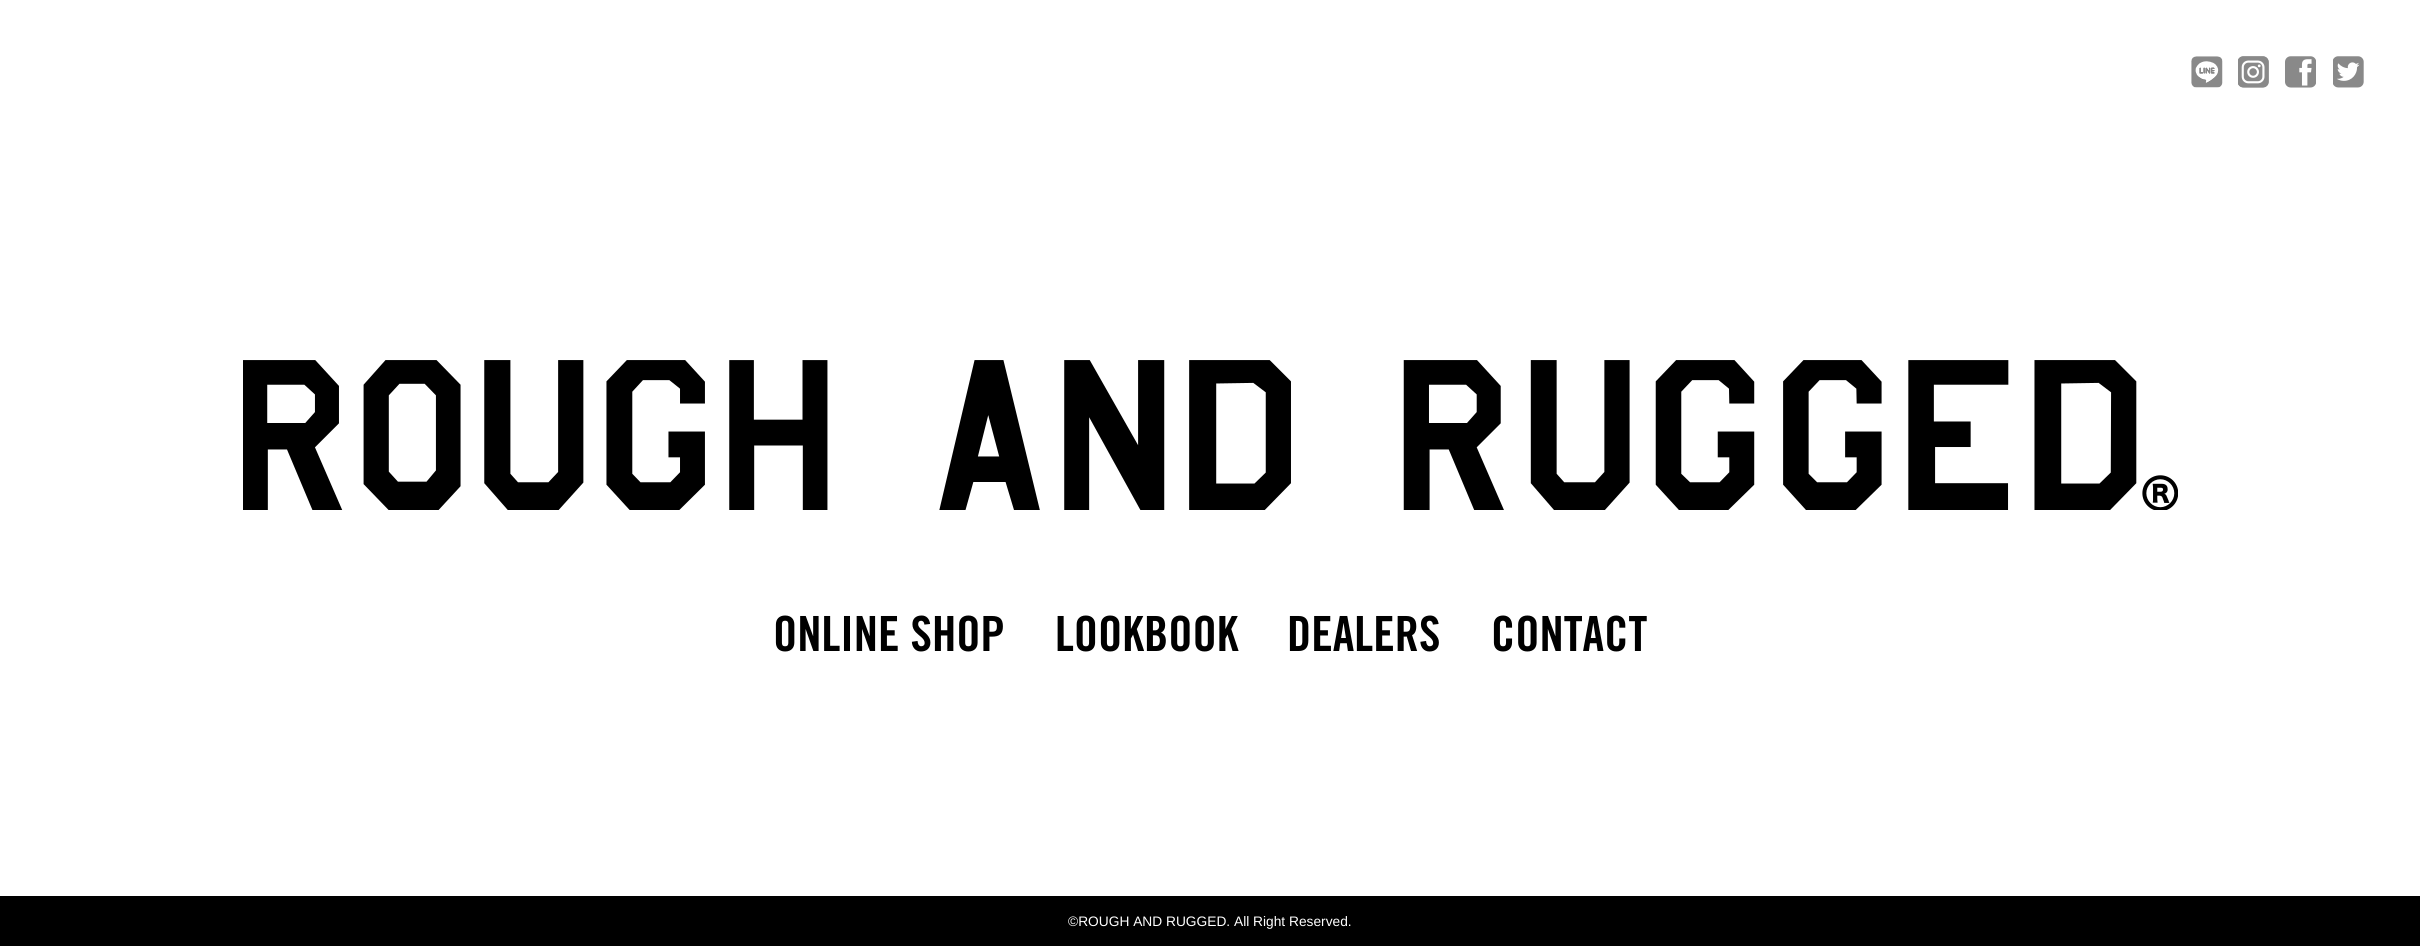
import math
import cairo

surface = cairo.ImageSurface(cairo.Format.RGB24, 2420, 946)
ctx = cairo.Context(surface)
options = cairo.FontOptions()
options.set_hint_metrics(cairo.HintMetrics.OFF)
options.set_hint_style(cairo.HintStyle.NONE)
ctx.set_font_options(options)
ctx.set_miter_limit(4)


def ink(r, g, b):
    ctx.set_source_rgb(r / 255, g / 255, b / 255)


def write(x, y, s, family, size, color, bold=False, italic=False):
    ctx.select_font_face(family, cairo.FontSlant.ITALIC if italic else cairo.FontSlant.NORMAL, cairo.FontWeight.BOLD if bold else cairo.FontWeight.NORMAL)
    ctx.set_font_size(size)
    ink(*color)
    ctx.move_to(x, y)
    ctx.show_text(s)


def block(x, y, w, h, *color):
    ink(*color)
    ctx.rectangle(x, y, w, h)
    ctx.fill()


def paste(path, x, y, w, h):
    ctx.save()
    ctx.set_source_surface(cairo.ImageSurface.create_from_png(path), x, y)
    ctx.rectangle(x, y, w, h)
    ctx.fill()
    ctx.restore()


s1 = dict(family="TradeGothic", size=48.5, color=(0, 0, 0), bold=True)
s2 = dict(family="Liberation Sans", size=13.75, color=(255, 255, 255))

ink(255, 255, 255)
ctx.paint()
paste("pic1.png", 2191, 56, 32, 32)
paste("pic2.png", 2238, 56, 31, 32)
paste("pic3.png", 2285, 56, 31, 32)
paste("pic4.png", 2333, 56, 31, 32)
paste("pic5.png", 243, 360, 1935, 150)
write(773, 651, "ONLINE SHOP", **s1)
write(1055, 651, "LOOKBOOK", **s1)
write(1287, 651, "DEALERS", **s1)
write(1491, 651, "CONTACT", **s1)
block(0, 896, 2420, 50, 0, 0, 0)
write(1068, 926, "©ROUGH AND RUGGED. All Right Reserved.", **s2)
surface.write_to_png("screenshot.png")
